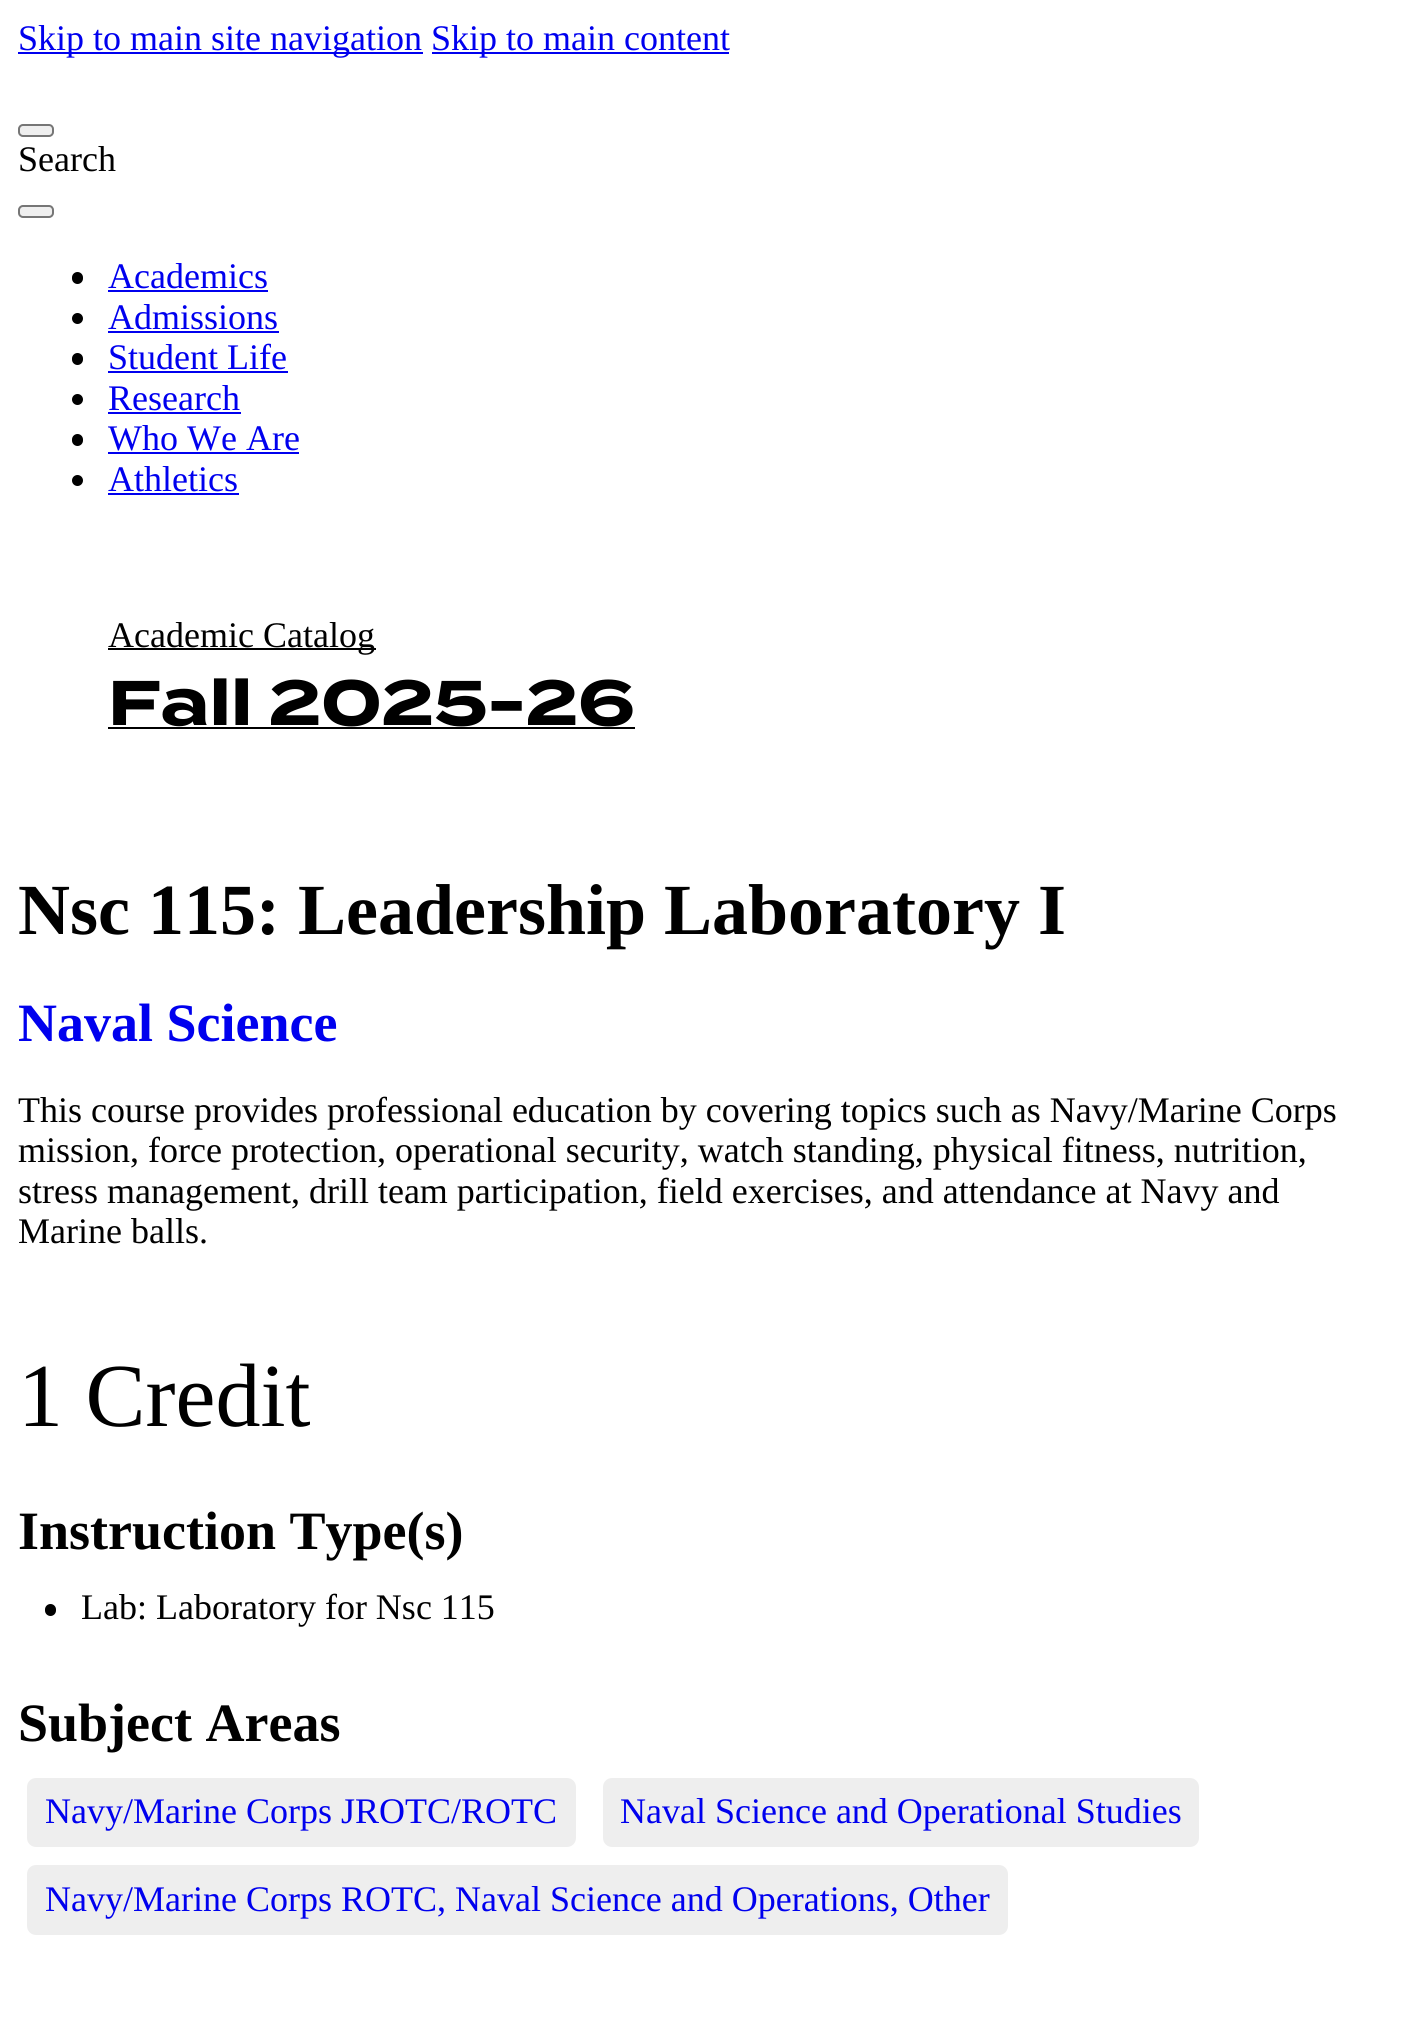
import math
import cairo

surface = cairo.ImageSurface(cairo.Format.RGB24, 1427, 2031)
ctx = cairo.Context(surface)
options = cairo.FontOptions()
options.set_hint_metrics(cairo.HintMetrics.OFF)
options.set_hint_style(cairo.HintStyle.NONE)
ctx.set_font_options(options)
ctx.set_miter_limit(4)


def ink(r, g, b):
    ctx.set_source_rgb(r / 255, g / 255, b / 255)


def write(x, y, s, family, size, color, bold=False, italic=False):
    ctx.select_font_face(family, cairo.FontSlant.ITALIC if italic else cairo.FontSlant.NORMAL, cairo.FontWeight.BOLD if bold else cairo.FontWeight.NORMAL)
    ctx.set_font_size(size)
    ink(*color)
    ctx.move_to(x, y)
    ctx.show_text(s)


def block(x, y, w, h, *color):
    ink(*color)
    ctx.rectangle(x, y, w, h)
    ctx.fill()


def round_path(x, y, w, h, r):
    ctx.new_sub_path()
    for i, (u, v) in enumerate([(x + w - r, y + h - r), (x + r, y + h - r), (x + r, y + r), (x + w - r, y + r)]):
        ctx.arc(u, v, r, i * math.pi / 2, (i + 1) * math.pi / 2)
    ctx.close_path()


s1 = dict(family="Liberation Serif", size=36, color=(0, 0, 238))
s2 = dict(family="Liberation Serif", size=36, color=(0, 0, 0))
s3 = dict(family="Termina", size=63, color=(0, 0, 0), bold=True)
s4 = dict(family="Liberation Serif", size=72, color=(0, 0, 0), bold=True)
s5 = dict(family="Liberation Serif", size=54, color=(0, 0, 238), bold=True)
s6 = dict(family="Liberation Serif", size=90, color=(0, 0, 0))
s7 = dict(family="Liberation Serif", size=54, color=(0, 0, 0), bold=True)

ink(255, 255, 255)
ctx.paint()
block(18, 52, 405, 2, 0, 0, 238)
write(18, 50, "Skip to main site navigation", **s1)
block(432, 52, 297, 2, 0, 0, 238)
write(431, 50, "Skip to main content", **s1)
ink(239, 239, 239)
round_path(19, 125, 34, 11, 4)
ctx.fill_preserve()
ink(118, 118, 118)
ctx.stroke()
write(18, 171, "Search", **s2)
ink(239, 239, 239)
round_path(19, 206, 34, 11, 4)
ctx.fill_preserve()
ink(118, 118, 118)
ctx.stroke()
ink(0, 0, 0)
round_path(72, 272, 11, 12, 5.5)
ctx.fill()
write(108, 288, "Academics", **s1)
block(108, 290, 160, 2, 0, 0, 238)
ink(0, 0, 0)
ctx.new_path()
ctx.arc(77.5, 318.5, 5.5, 0, 2 * math.pi)
ctx.fill()
write(108, 329, "Admissions", **s1)
block(108, 331, 171, 2, 0, 0, 238)
ink(0, 0, 0)
round_path(72, 353, 11, 12, 5.5)
ctx.fill()
write(108, 369, "Student Life", **s1)
block(108, 371, 180, 2, 0, 0, 238)
ink(0, 0, 0)
ctx.new_path()
ctx.arc(77.5, 399.5, 5.5, 0, 2 * math.pi)
ctx.fill()
write(108, 410, "Research", **s1)
block(108, 412, 133, 2, 0, 0, 238)
ink(0, 0, 0)
round_path(72, 434, 11, 12, 5.5)
ctx.fill()
write(108, 450, "Who We Are", **s1)
block(108, 452, 191, 2, 0, 0, 238)
ink(0, 0, 0)
ctx.new_path()
ctx.arc(77.5, 480.5, 5.5, 0, 2 * math.pi)
ctx.fill()
write(108, 491, "Athletics", **s1)
block(108, 493, 131, 2, 0, 0, 238)
block(108, 648, 268, 2, 0, 0, 0)
write(108, 647, "Academic Catalog", **s2)
write(108, 725, "Fall 2025-26", **s3)
block(108, 727, 527, 2, 0, 0, 0)
write(18, 934, "Nsc 115: Leadership Laboratory I", **s4)
write(18, 1041, "Naval Science", **s5)
write(18, 1122, "This course provides professional education by covering topics such as Navy/Marine Corps", **s2)
write(18, 1162, "mission, force protection, operational security, watch standing, physical fitness, nutrition,", **s2)
write(18, 1203, "stress management, drill team participation, field exercises, and attendance at Navy and", **s2)
write(18, 1243, "Marine balls.", **s2)
write(18, 1426, "1 Credit", **s6)
write(18, 1549, "Instruction Type(s)", **s7)
round_path(45, 1604, 11, 12, 5.5)
ctx.fill()
write(81, 1619, "Lab: Laboratory for Nsc 115", **s2)
write(18, 1741, "Subject Areas", **s7)
ink(238, 238, 238)
round_path(27, 1778, 549, 69, 9)
ctx.fill()
write(45, 1823, "Navy/Marine Corps JROTC/ROTC", **s1)
ink(238, 238, 238)
round_path(603, 1778, 596, 69, 9)
ctx.fill()
write(620, 1823, "Naval Science and Operational Studies", **s1)
ink(238, 238, 238)
round_path(27, 1865, 981, 70, 9)
ctx.fill()
write(45, 1911, "Navy/Marine Corps ROTC, Naval Science and Operations, Other", **s1)
surface.write_to_png("screenshot.png")
